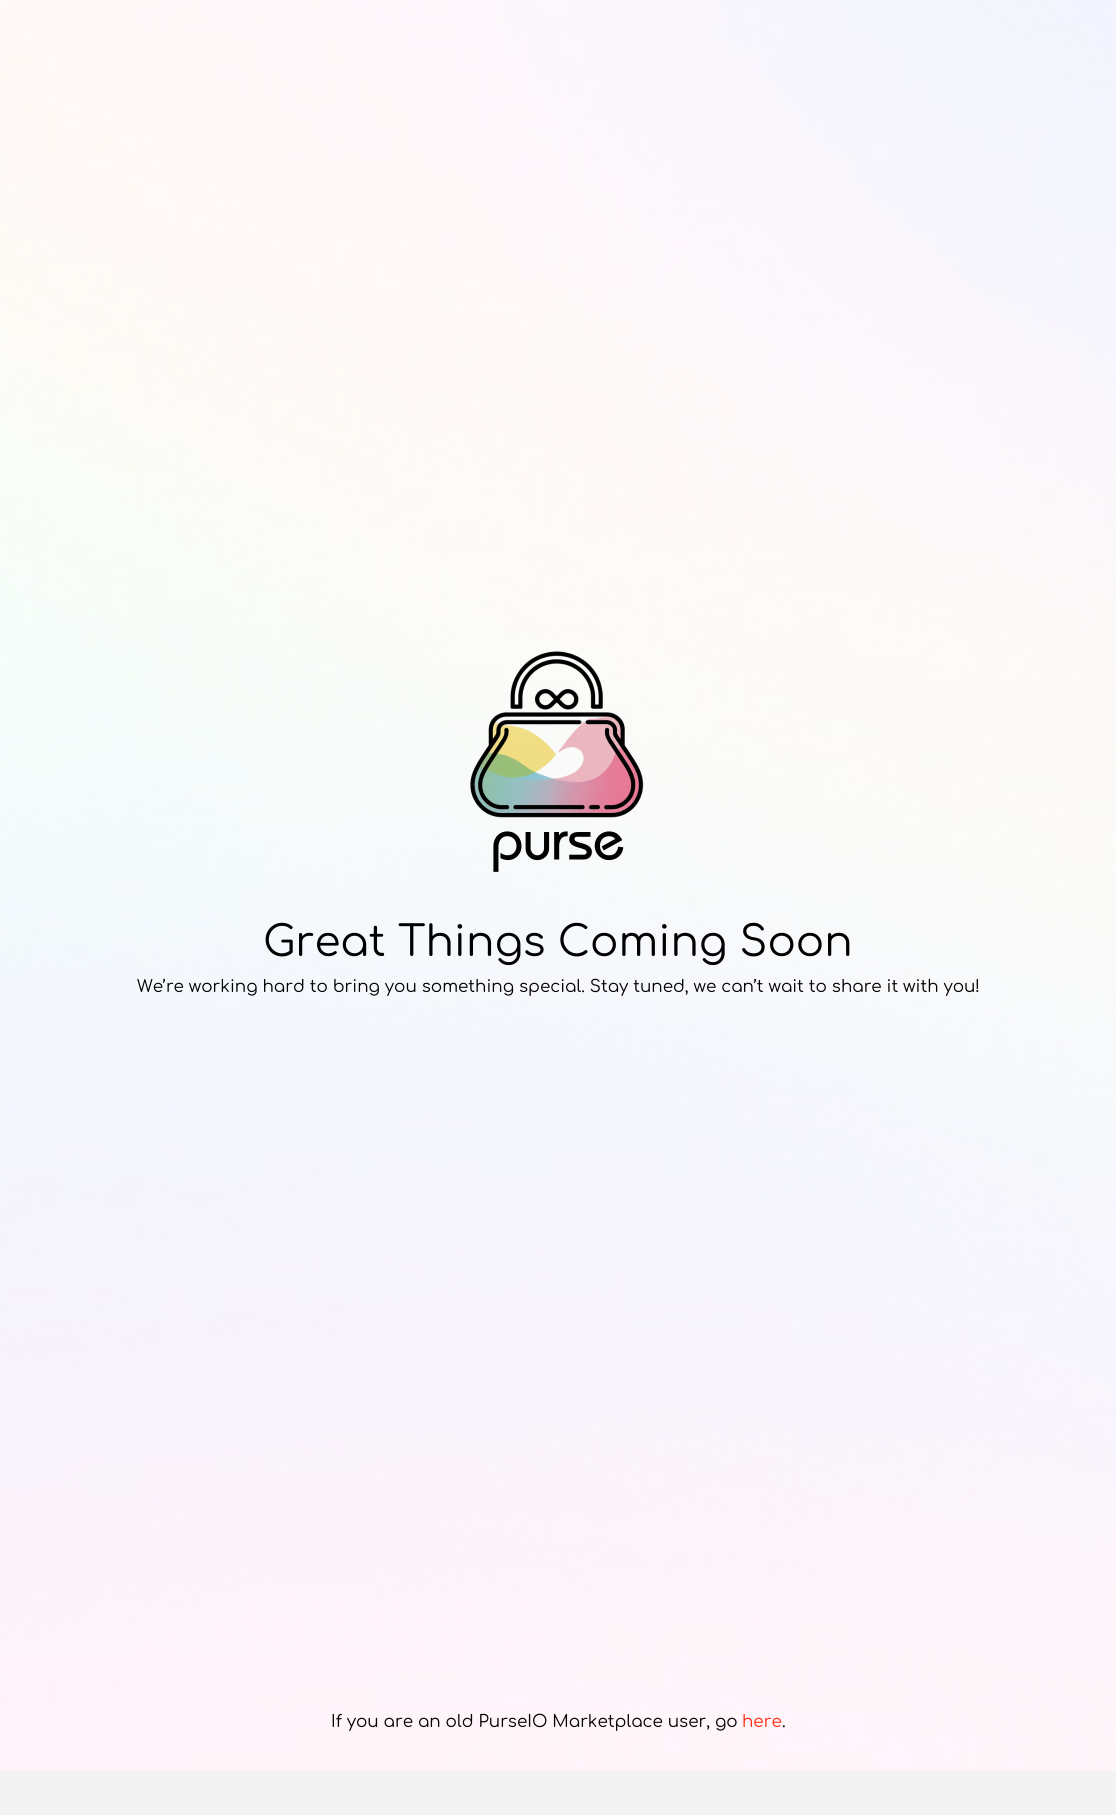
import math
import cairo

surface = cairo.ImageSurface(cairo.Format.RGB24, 1116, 1815)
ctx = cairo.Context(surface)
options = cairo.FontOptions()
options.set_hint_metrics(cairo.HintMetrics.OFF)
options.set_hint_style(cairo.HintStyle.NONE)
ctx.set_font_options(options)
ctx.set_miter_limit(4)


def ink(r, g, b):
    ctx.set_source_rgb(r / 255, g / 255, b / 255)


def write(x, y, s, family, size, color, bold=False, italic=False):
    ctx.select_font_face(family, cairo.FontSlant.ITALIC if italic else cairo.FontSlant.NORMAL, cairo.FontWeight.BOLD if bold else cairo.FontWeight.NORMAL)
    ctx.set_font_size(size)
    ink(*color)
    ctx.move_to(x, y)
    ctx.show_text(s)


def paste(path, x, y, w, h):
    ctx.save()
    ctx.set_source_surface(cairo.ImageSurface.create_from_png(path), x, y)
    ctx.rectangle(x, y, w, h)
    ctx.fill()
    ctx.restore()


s1 = dict(family="Comfortaa", size=42, color=(0, 0, 0))
s2 = dict(family="Comfortaa", size=16.8, color=(0, 0, 0))
s3 = dict(family="Comfortaa", size=16.8, color=(255, 42, 19))

ink(243, 243, 243)
ctx.paint()
paste("pic1.png", 0, 0, 1116, 1770)
paste("pic2.png", 470, 651, 174, 221)
write(263, 956, "Great Things Coming Soon", **s1)
write(137, 992, "We’re working hard to bring you something special. Stay tuned, we can’t wait to share it with you!", **s2)
write(331, 1727, "If you are an old PurseIO Marketplace user, go", **s2)
write(742, 1727, "here", **s3)
write(782, 1727, ".", **s2)
surface.write_to_png("screenshot.png")
